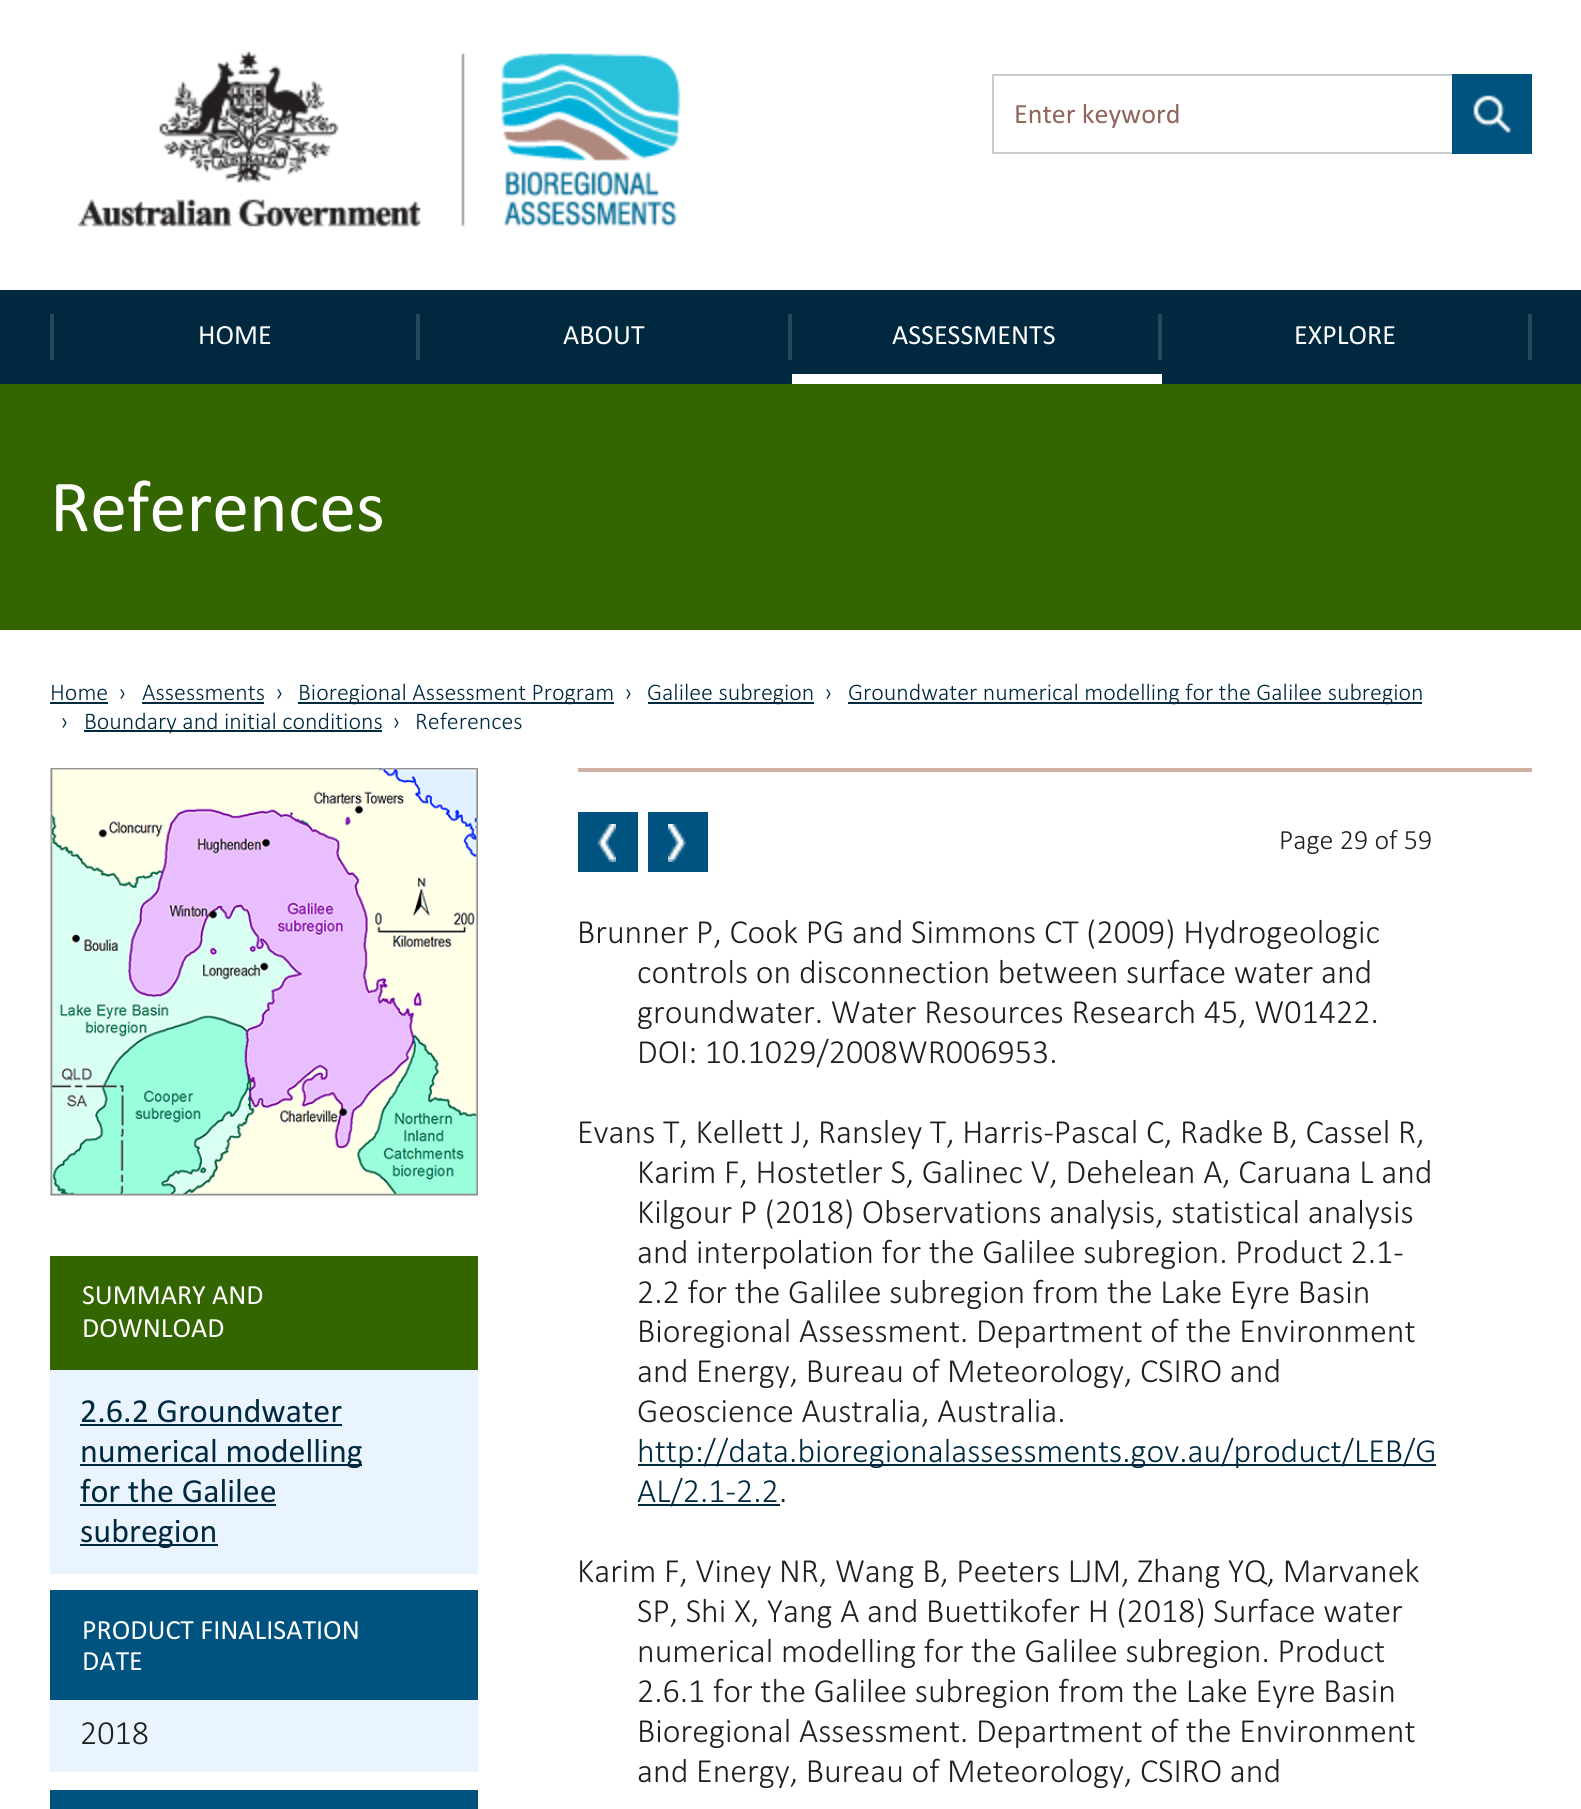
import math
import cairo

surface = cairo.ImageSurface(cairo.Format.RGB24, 1581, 1809)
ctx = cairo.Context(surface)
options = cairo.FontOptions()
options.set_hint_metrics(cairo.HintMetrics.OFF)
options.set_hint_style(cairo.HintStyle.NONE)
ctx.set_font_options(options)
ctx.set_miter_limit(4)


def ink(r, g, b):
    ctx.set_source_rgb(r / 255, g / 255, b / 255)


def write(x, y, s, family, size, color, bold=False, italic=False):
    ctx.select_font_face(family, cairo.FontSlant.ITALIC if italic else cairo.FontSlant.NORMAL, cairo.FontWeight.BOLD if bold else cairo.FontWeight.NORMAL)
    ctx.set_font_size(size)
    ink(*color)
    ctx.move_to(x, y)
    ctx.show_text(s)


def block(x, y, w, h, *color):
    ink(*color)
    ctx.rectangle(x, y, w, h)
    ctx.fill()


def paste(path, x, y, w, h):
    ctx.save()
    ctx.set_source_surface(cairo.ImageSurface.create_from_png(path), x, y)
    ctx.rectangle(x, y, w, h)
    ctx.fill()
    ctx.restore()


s1 = dict(family="Calibri", size=28, color=(143, 101, 90))
s2 = dict(family="Calibri", size=28, color=(255, 255, 255))
s3 = dict(family="Calibri", size=74, color=(255, 255, 255))
s4 = dict(family="Calibri Light", size=24, color=(0, 41, 63))
s5 = dict(family="Calibri", size=34, color=(0, 41, 63))
s6 = dict(family="Calibri Light", size=34, color=(32, 32, 32))
s7 = dict(family="Calibri Light", size=28, color=(32, 32, 32))
s8 = dict(family="Calibri Light", size=34, color=(0, 41, 63))

ink(255, 255, 255)
ctx.paint()
paste("pic1.png", 77, 51, 604, 176)
ctx.rectangle(993, 75, 538, 78)
ink(202, 204, 205)
ctx.stroke()
write(1014, 123, "Enter keyword", **s1)
block(1452, 74, 80, 80, 0, 83, 127)
paste("pic2.png", 1473, 95, 39, 39)
block(0, 290, 1581, 94, 0, 41, 63)
block(416, 314, 4, 46, 38, 73, 92)
block(50, 314, 4, 46, 38, 73, 92)
write(198, 344, "HOME", **s2)
block(788, 314, 4, 46, 38, 73, 92)
write(563, 344, "ABOUT", **s2)
block(1158, 314, 4, 46, 38, 73, 92)
write(892, 344, "ASSESSMENTS", **s2)
block(792, 374, 370, 10, 255, 255, 255)
block(1528, 314, 4, 46, 38, 73, 92)
write(1294, 344, "EXPLORE", **s2)
block(0, 384, 1581, 246, 51, 102, 0)
write(50, 531, "References", **s3)
write(50, 700, "Home", **s4)
block(50, 702, 58, 2, 0, 41, 63)
write(118, 700, "›", **s4)
write(142, 700, "Assessments", **s4)
block(142, 702, 122, 2, 0, 41, 63)
write(275, 700, "›", **s4)
block(298, 702, 316, 2, 0, 41, 63)
write(298, 700, "Bioregional Assessment Program", **s4)
write(624, 700, "›", **s4)
block(648, 702, 166, 2, 0, 41, 63)
write(647, 700, "Galilee subregion", **s4)
write(824, 700, "›", **s4)
block(848, 702, 574, 2, 0, 41, 63)
write(848, 700, "Groundwater numerical modelling for the Galilee subregion", **s4)
write(60, 729, "›", **s4)
block(84, 730, 298, 2, 0, 41, 63)
write(84, 729, "Boundary and initial conditions", **s4)
write(392, 729, "›", **s4)
write(415, 729, "References", **s4)
paste("pic3.png", 50, 768, 428, 428)
block(50, 1256, 428, 114, 51, 102, 0)
write(82, 1304, "SUMMARY AND", **s2)
write(82, 1337, "DOWNLOAD", **s2)
block(50, 1370, 428, 204, 233, 244, 255)
write(80, 1422, "2.6.2 Groundwater", **s5)
block(80, 1424, 262, 2, 0, 41, 63)
block(80, 1464, 282, 2, 0, 41, 63)
write(80, 1462, "numerical modelling", **s5)
write(80, 1502, "for the Galilee", **s5)
block(80, 1504, 196, 2, 0, 41, 63)
block(80, 1544, 138, 2, 0, 41, 63)
write(80, 1542, "subregion", **s5)
block(50, 1590, 428, 110, 0, 83, 127)
write(82, 1639, "PRODUCT FINALISATION", **s2)
write(82, 1670, "DATE", **s2)
block(50, 1700, 428, 72, 233, 244, 255)
write(80, 1744, "2018", **s6)
block(50, 1790, 428, 19, 0, 83, 127)
block(578, 768, 954, 4, 208, 176, 160)
block(578, 812, 60, 60, 0, 83, 127)
paste("pic4.png", 598, 824, 18, 38)
block(648, 812, 60, 60, 0, 83, 127)
paste("pic5.png", 668, 824, 18, 38)
write(1279, 849, "Page 29 of 59", **s7)
write(577, 943, "Brunner P, Cook PG and Simmons CT (2009) Hydrogeologic", **s6)
write(637, 983, "controls on disconnection between surface water and", **s6)
write(637, 1023, "groundwater. Water Resources Research 45, W01422.", **s6)
write(637, 1063, "DOI: 10.1029/2008WR006953.", **s6)
write(577, 1143, "Evans T, Kellett J, Ransley T, Harris-Pascal C, Radke B, Cassel R,", **s6)
write(637, 1183, "Karim F, Hostetler S, Galinec V, Dehelean A, Caruana L and", **s6)
write(637, 1223, "Kilgour P (2018) Observations analysis, statistical analysis", **s6)
write(637, 1263, "and interpolation for the Galilee subregion. Product 2.1-", **s6)
write(637, 1303, "2.2 for the Galilee subregion from the Lake Eyre Basin", **s6)
write(637, 1342, "Bioregional Assessment. Department of the Environment", **s6)
write(637, 1382, "and Energy, Bureau of Meteorology, CSIRO and", **s6)
write(637, 1422, "Geoscience Australia, Australia.", **s6)
block(638, 1464, 798, 2, 0, 41, 63)
write(637, 1462, "http://data.bioregionalassessments.gov.au/product/LEB/G", **s8)
block(638, 1504, 142, 2, 0, 41, 63)
write(637, 1502, "AL/2.1-2.2", **s8)
write(779, 1502, ".", **s6)
write(577, 1582, "Karim F, Viney NR, Wang B, Peeters LJM, Zhang YQ, Marvanek", **s6)
write(637, 1622, "SP, Shi X, Yang A and Buettikofer H (2018) Surface water", **s6)
write(637, 1662, "numerical modelling for the Galilee subregion. Product", **s6)
write(637, 1702, "2.6.1 for the Galilee subregion from the Lake Eyre Basin", **s6)
write(637, 1742, "Bioregional Assessment. Department of the Environment", **s6)
write(637, 1782, "and Energy, Bureau of Meteorology, CSIRO and", **s6)
surface.write_to_png("screenshot.png")
